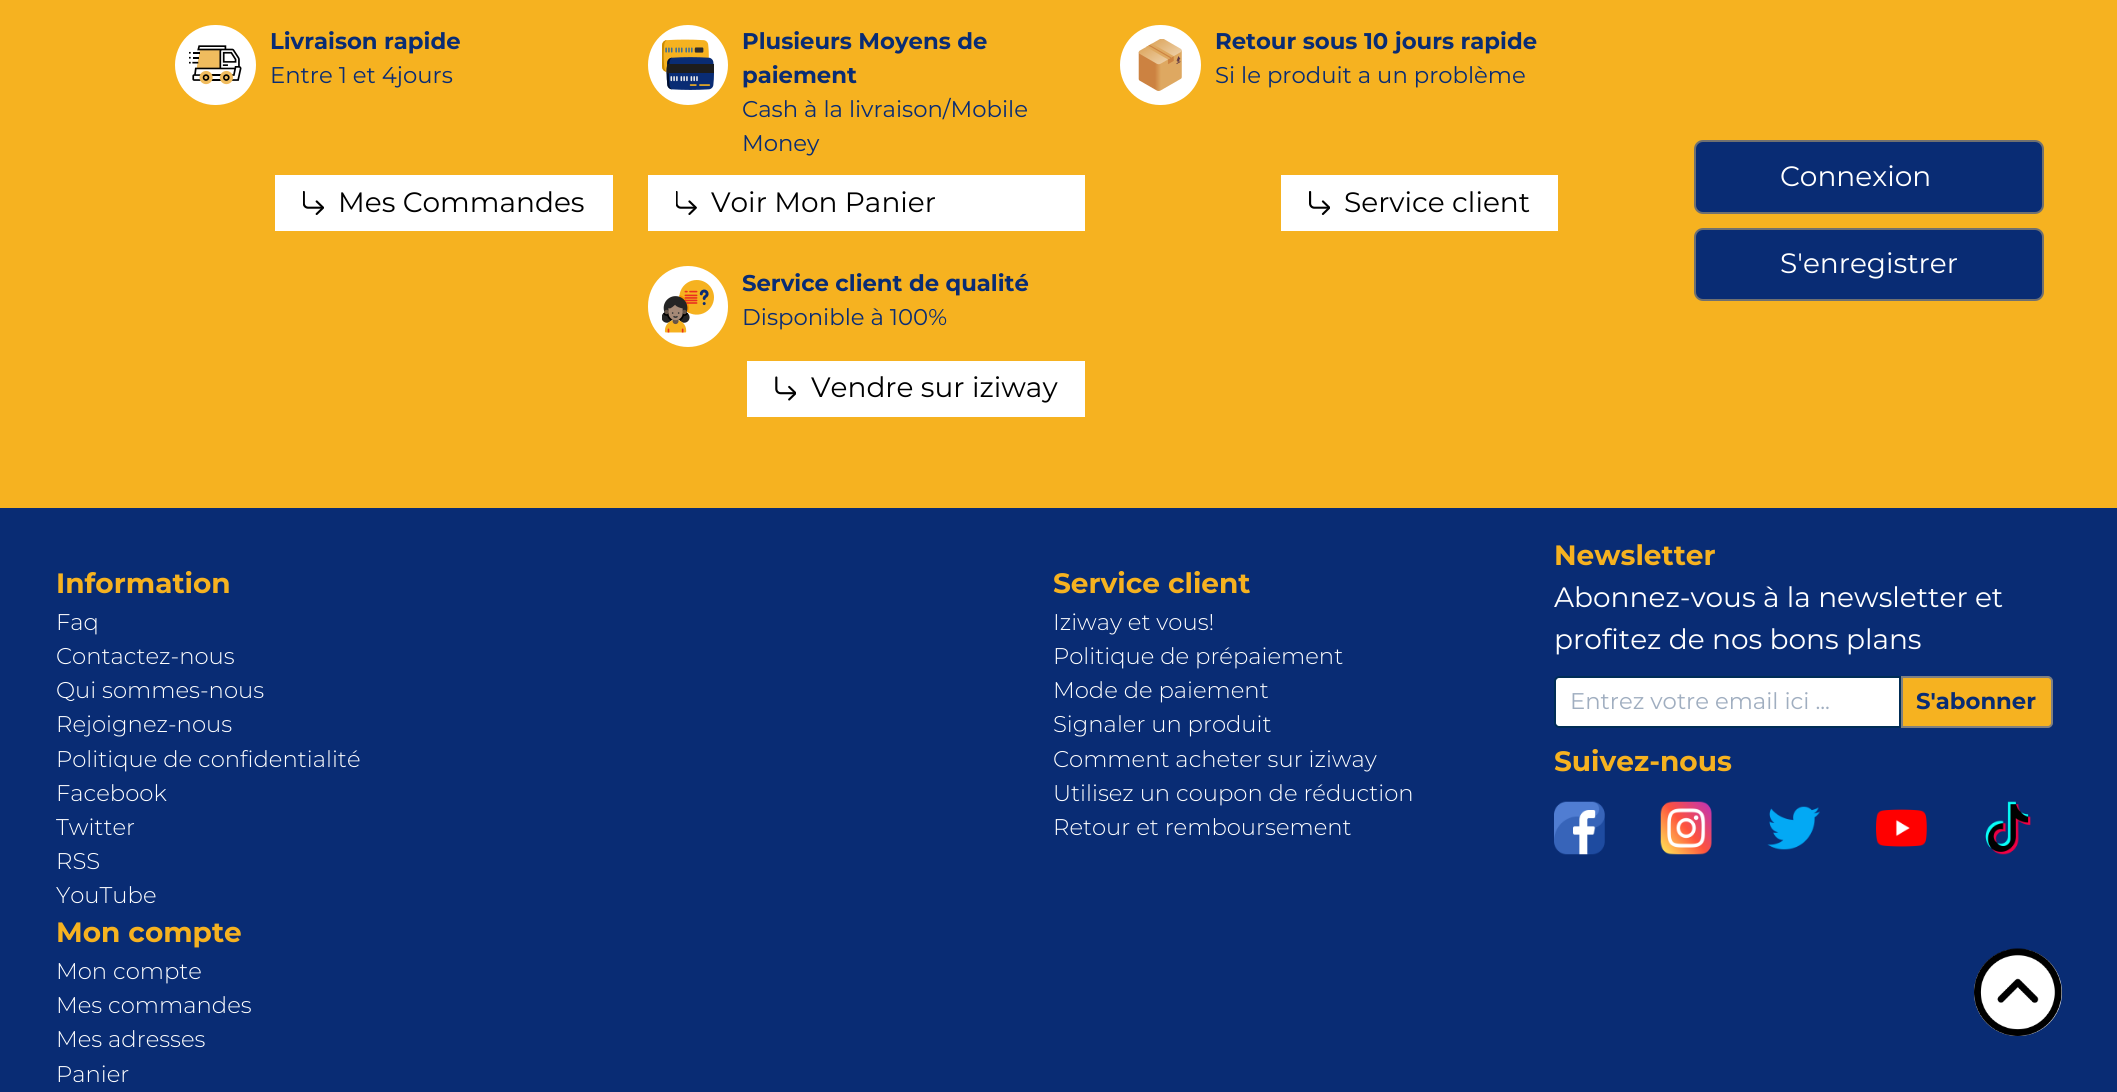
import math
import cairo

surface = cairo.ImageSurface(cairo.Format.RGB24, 2117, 1092)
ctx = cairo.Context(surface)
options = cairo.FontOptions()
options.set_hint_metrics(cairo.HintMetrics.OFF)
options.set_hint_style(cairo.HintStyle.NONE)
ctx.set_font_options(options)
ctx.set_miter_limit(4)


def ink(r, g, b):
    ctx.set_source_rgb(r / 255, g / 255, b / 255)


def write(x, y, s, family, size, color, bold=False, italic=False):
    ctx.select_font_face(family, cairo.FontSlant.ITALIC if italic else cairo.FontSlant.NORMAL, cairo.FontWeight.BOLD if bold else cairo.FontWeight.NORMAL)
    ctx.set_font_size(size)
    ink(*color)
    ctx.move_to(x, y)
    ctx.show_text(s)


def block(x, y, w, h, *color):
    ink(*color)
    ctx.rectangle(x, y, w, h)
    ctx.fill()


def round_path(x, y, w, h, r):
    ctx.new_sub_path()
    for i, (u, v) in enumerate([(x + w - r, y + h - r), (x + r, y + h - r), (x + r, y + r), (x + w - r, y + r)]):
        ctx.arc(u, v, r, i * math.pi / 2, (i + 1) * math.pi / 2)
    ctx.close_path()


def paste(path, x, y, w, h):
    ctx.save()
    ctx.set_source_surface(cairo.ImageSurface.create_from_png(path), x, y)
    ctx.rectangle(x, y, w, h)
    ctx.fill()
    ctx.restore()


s1 = dict(family="Montserrat", size=22.75, color=(9, 44, 116), bold=True)
s2 = dict(family="Montserrat", size=22.75, color=(9, 44, 116))
s3 = dict(family="Montserrat", size=28, color=(0, 0, 0))
s4 = dict(family="Montserrat", size=28, color=(255, 255, 255))
s5 = dict(family="Montserrat", size=28, color=(246, 178, 32), bold=True)
s6 = dict(family="Montserrat Light", size=22.75, color=(255, 255, 255))
s7 = dict(family="Montserrat", size=22.75, color=(160, 174, 192))

ink(246, 178, 32)
ctx.paint()
ink(255, 255, 255)
round_path(175, 25, 81, 80, 40)
ctx.fill()
paste("pic1.png", 189, 45, 53, 40)
write(270, 49, "Livraison rapide", **s1)
write(270, 83, "Entre 1 et 4jours", **s2)
block(275, 175, 338, 56, 255, 255, 255)
paste("pic2.png", 303, 191, 21, 24)
write(338, 212, "Mes Commandes", **s3)
ink(255, 255, 255)
ctx.new_path()
ctx.arc(688, 65, 40, 0, 2 * math.pi)
ctx.fill()
paste("pic3.png", 662, 39, 52, 51)
write(742, 49, "Plusieurs Moyens de", **s1)
write(742, 83, "paiement", **s1)
write(742, 117, "Cash à la livraison/Mobile", **s2)
write(742, 151, "Money", **s2)
block(648, 175, 437, 56, 255, 255, 255)
paste("pic4.png", 676, 191, 21, 24)
write(711, 212, "Voir Mon Panier", **s3)
ink(255, 255, 255)
round_path(1120, 25, 81, 80, 40)
ctx.fill()
paste("pic5.png", 1138, 39, 44, 52)
write(1215, 49, "Retour sous 10 jours rapide", **s1)
write(1215, 83, "Si le produit a un problème", **s2)
block(1281, 175, 277, 56, 255, 255, 255)
paste("pic6.png", 1309, 191, 21, 24)
write(1344, 212, "Service client", **s3)
ink(255, 255, 255)
round_path(648, 266, 80, 81, 40)
ctx.fill()
paste("pic7.png", 662, 280, 52, 53)
write(742, 291, "Service client de qualité", **s1)
write(742, 325, "Disponible à 100%", **s2)
block(747, 361, 338, 56, 255, 255, 255)
paste("pic8.png", 775, 376, 21, 25)
write(811, 397, "Vendre sur iziway", **s3)
ink(9, 44, 116)
round_path(1695, 141, 348, 72, 8)
ctx.fill_preserve()
ink(112, 112, 112)
ctx.stroke()
write(1780, 186, "Connexion", **s4)
ink(9, 44, 116)
round_path(1695, 229, 348, 71, 8)
ctx.fill_preserve()
ink(112, 112, 112)
ctx.stroke()
write(1780, 273, "S'enregistrer", **s4)
block(0, 508, 2117, 584, 9, 44, 116)
write(56, 593, "Information", **s5)
write(56, 630, "Faq", **s6)
write(56, 664, "Contactez-nous", **s6)
write(56, 698, "Qui sommes-nous", **s6)
write(56, 732, "Rejoignez-nous", **s6)
write(56, 767, "Politique de confidentialité", **s6)
write(56, 801, "Facebook", **s6)
write(56, 835, "Twitter", **s6)
write(56, 869, "RSS", **s6)
write(56, 903, "YouTube", **s6)
write(1053, 593, "Service client", **s5)
write(1053, 630, "Iziway et vous!", **s6)
write(1053, 664, "Politique de prépaiement", **s6)
write(1053, 698, "Mode de paiement", **s6)
write(1053, 732, "Signaler un produit", **s6)
write(1053, 767, "Comment acheter sur iziway", **s6)
write(1053, 801, "Utilisez un coupon de réduction", **s6)
write(1053, 835, "Retour et remboursement", **s6)
write(56, 942, "Mon compte", **s5)
write(56, 979, "Mon compte", **s6)
write(56, 1013, "Mes commandes", **s6)
write(56, 1047, "Mes adresses", **s6)
write(56, 1082, "Panier", **s6)
write(1554, 565, "Newsletter", **s5)
write(1554, 607, "Abonnez-vous à la newsletter et", **s4)
write(1554, 649, "profitez de nos bons plans", **s4)
ctx.new_path()
ctx.move_to(1559, 677)
ctx.line_to(1900, 677)
ctx.line_to(1900, 727)
ctx.line_to(1559, 727)
ctx.curve_to(1557, 727, 1555, 725, 1555, 723)
ctx.line_to(1555, 681)
ctx.curve_to(1555, 679, 1557, 677, 1559, 677)
ctx.close_path()
ctx.fill_preserve()
ink(0, 45, 86)
ctx.stroke()
write(1570, 709, "Entrez votre email ici ...", **s7)
ink(246, 178, 32)
ctx.new_path()
ctx.move_to(1902, 677)
ctx.line_to(2048, 677)
ctx.curve_to(2050, 677, 2052, 679, 2052, 681)
ctx.line_to(2052, 723)
ctx.curve_to(2052, 725, 2050, 727, 2048, 727)
ctx.line_to(1902, 727)
ctx.close_path()
ctx.fill_preserve()
ink(128, 128, 128)
ctx.stroke()
write(1916, 709, "S'abonner", **s1)
write(1554, 771, "Suivez-nous", **s5)
paste("pic9.png", 1554, 801, 51, 54)
paste("pic10.png", 1660, 801, 52, 54)
paste("pic11.png", 1767, 806, 53, 44)
paste("pic12.png", 1876, 809, 51, 38)
paste("pic13.png", 1985, 801, 46, 54)
ink(255, 255, 255)
round_path(1974, 949, 88, 87, 43.5)
ctx.fill()
paste("pic14.png", 1974, 948, 88, 88)
surface.write_to_png("screenshot.png")
